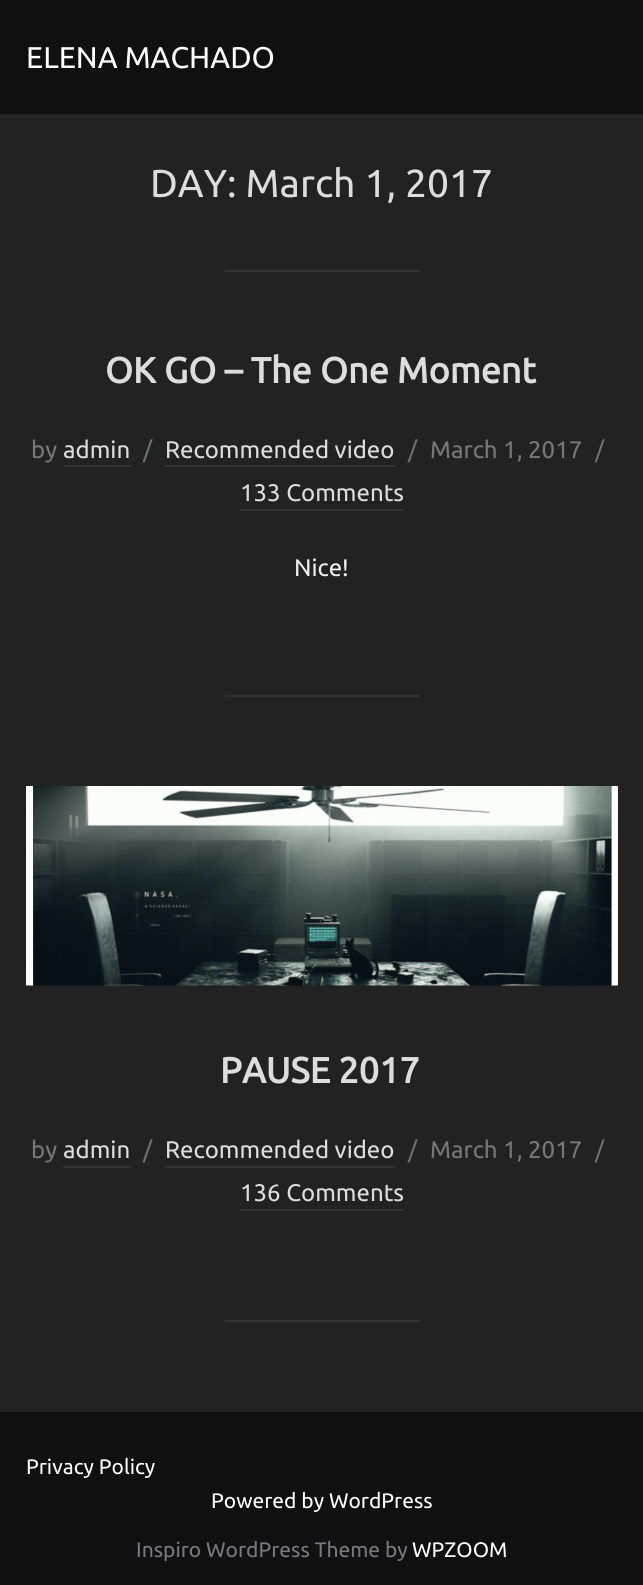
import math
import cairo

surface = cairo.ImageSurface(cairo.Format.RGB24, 643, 1585)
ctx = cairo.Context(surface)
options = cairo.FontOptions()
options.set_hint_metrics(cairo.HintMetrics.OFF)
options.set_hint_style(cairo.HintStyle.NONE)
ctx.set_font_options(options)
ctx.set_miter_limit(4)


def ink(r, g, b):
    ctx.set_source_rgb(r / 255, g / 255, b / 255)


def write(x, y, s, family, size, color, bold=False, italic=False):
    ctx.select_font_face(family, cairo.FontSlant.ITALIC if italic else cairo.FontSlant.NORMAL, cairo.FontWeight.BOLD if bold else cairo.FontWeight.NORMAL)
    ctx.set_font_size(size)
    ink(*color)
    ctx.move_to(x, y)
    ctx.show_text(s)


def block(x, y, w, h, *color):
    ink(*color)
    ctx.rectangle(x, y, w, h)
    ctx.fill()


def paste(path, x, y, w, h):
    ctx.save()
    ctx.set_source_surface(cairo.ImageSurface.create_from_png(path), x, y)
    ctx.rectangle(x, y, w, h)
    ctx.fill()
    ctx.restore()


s1 = dict(family="Ubuntu", size=30, color=(255, 255, 255))
s2 = dict(family="Ubuntu", size=39, color=(221, 221, 221))
s3 = dict(family="Ubuntu", size=36, color=(221, 221, 221), bold=True)
s4 = dict(family="Ubuntu", size=24, color=(119, 119, 119))
s5 = dict(family="Ubuntu", size=24, color=(221, 221, 221))
s6 = dict(family="Ubuntu", size=24, color=(108, 110, 111))
s7 = dict(family="Ubuntu", size=24, color=(238, 238, 238))
s8 = dict(family="Ubuntu", size=21, color=(255, 255, 255))
s9 = dict(family="Ubuntu", size=21, color=(120, 120, 127))

ink(34, 34, 34)
ctx.paint()
block(0, 0, 643, 114, 16, 16, 16)
write(26, 68, "ELENA MACHADO", **s1)
write(150, 197, "DAY: March 1, 2017", **s2)
block(225, 270, 195, 2, 51, 51, 51)
write(105, 383, "OK GO – The One Moment", **s3)
write(31, 458, "by", **s4)
write(63, 458, "admin", **s5)
block(63, 465, 68, 2, 51, 51, 51)
write(143, 458, "/", **s6)
write(165, 458, "Recommended video", **s5)
block(165, 465, 230, 2, 51, 51, 51)
write(408, 458, "/", **s6)
write(430, 458, "March 1, 2017", **s4)
write(595, 458, "/", **s6)
write(240, 501, "133 Comments", **s5)
block(240, 509, 164, 2, 51, 51, 51)
write(294, 576, "Nice!", **s7)
block(225, 695, 195, 2, 51, 51, 51)
paste("pic1.png", 26, 786, 592, 200)
write(220, 1083, "PAUSE 2017", **s3)
write(31, 1158, "by", **s4)
write(63, 1158, "admin", **s5)
block(63, 1166, 68, 2, 51, 51, 51)
write(143, 1158, "/", **s6)
write(165, 1158, "Recommended video", **s5)
block(165, 1166, 230, 2, 51, 51, 51)
write(408, 1158, "/", **s6)
write(430, 1158, "March 1, 2017", **s4)
write(595, 1158, "/", **s6)
write(240, 1201, "136 Comments", **s5)
block(240, 1209, 164, 2, 51, 51, 51)
block(225, 1320, 195, 2, 51, 51, 51)
block(0, 1412, 643, 173, 16, 16, 16)
write(26, 1474, "Privacy Policy", **s8)
write(211, 1508, "Powered by WordPress", **s8)
write(136, 1557, "Inspiro WordPress Theme by", **s9)
write(412, 1557, "WPZOOM", **s8)
surface.write_to_png("screenshot.png")
